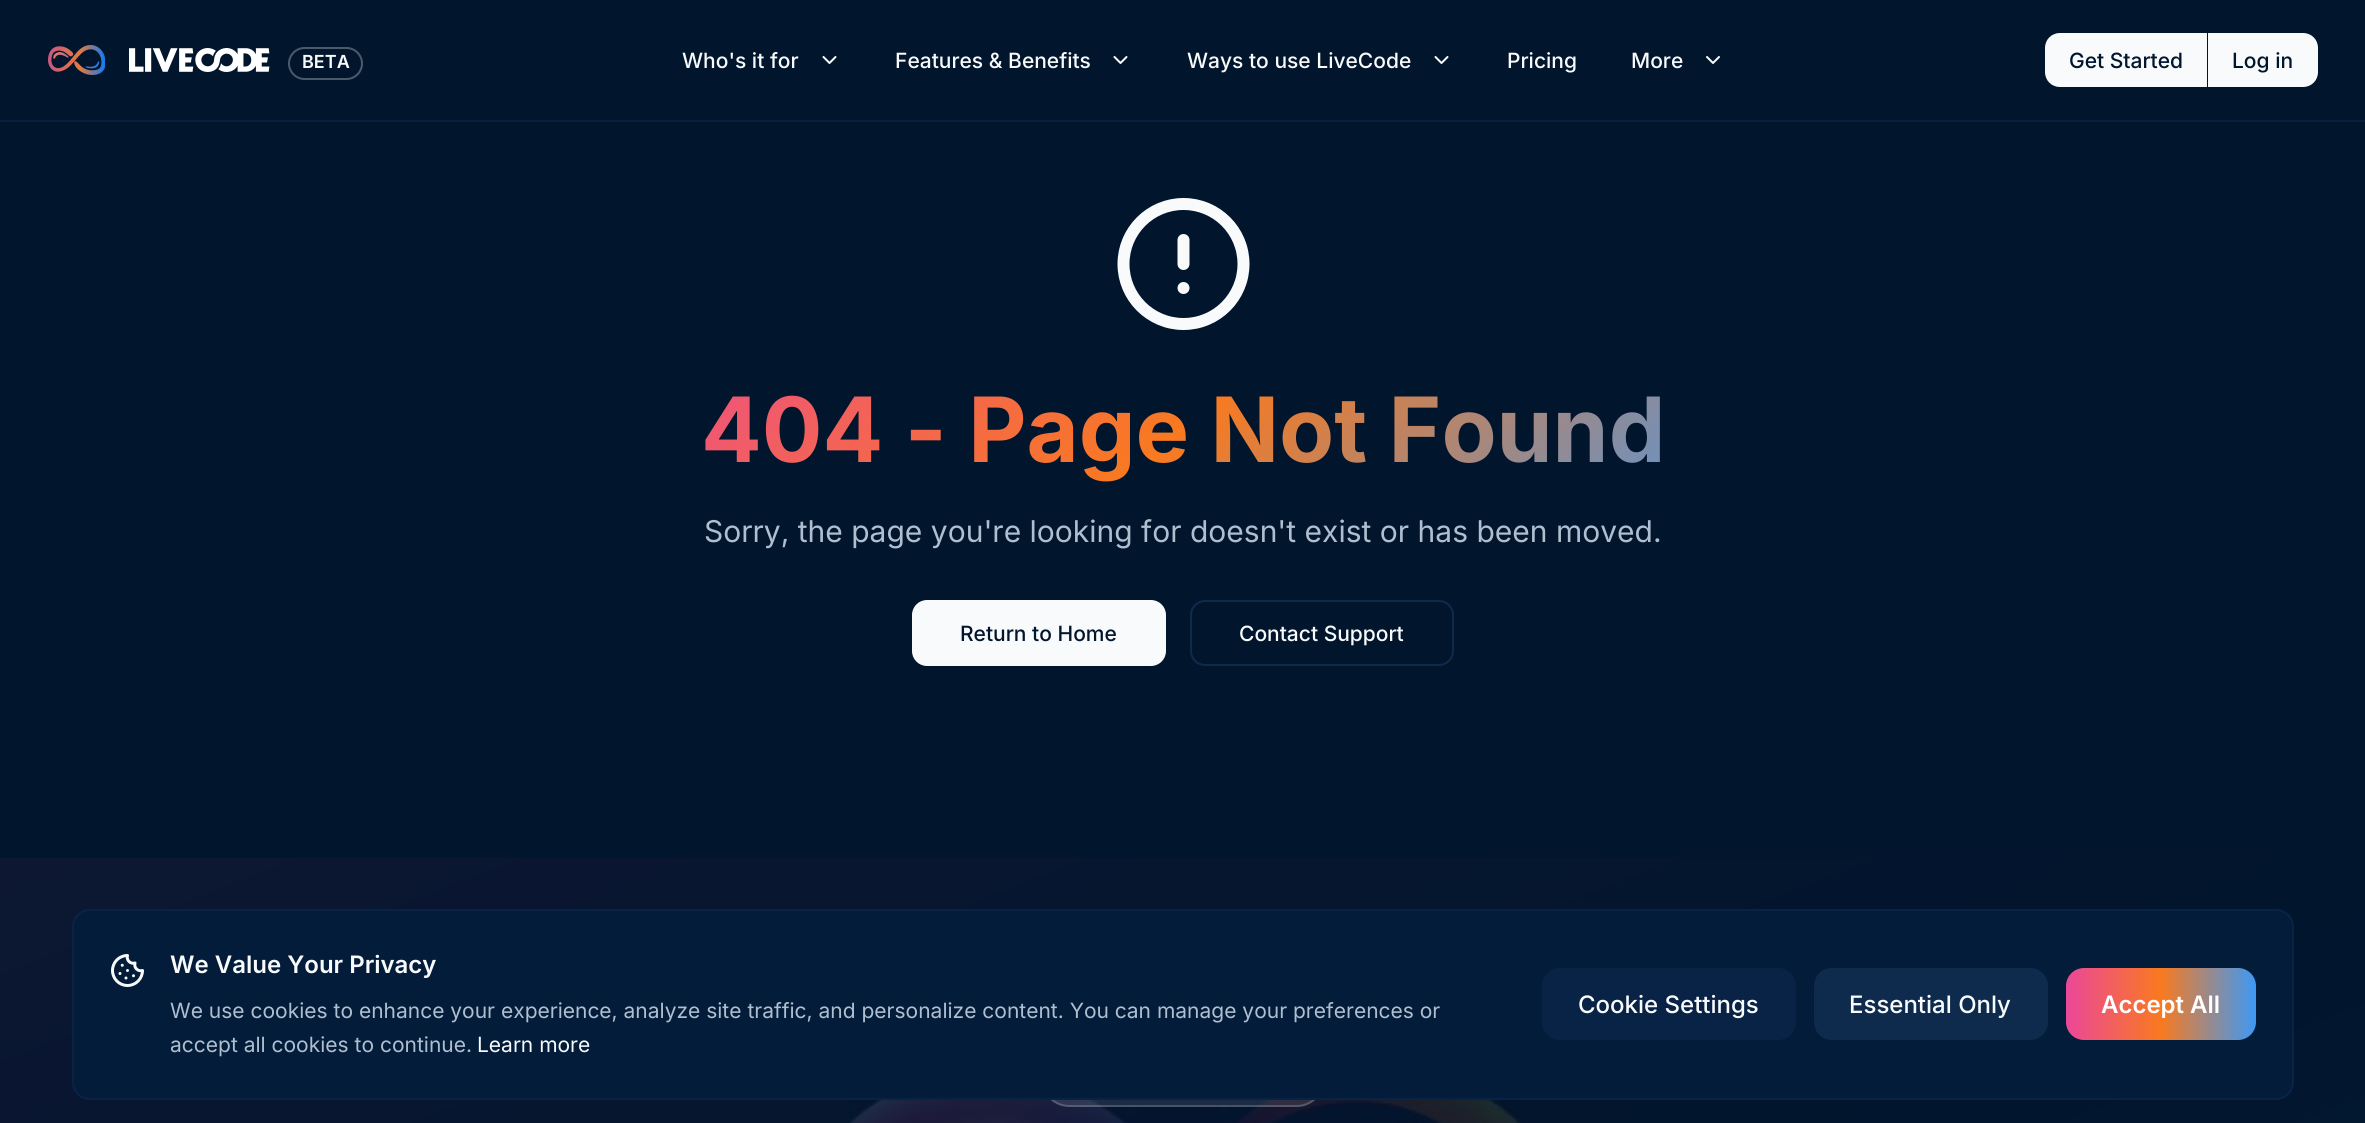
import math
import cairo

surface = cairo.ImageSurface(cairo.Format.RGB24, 2365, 1123)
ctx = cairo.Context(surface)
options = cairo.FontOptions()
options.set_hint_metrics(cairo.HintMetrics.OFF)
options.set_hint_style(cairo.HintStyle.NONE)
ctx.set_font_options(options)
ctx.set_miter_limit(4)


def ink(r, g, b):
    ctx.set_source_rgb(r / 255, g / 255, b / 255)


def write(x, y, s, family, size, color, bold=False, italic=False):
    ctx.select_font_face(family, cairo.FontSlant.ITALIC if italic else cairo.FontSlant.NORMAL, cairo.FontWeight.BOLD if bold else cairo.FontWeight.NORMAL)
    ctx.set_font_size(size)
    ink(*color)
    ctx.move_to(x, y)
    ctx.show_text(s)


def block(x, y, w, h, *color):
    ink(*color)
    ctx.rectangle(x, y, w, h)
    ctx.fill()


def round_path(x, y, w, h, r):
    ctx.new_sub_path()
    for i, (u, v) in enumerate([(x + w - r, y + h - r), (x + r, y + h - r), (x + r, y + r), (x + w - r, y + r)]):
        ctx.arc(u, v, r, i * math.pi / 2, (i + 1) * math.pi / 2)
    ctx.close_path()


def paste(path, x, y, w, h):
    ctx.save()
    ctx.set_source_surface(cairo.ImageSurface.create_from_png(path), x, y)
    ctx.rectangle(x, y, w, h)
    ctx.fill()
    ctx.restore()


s1 = dict(family="Inter SemiBold", size=18, color=(248, 250, 252))
s2 = dict(family="Inter Medium", size=21, color=(248, 250, 252))
s3 = dict(family="Inter Medium", size=21, color=(1, 21, 45))
s4 = dict(family="Inter", size=30, color=(175, 191, 207))
s5 = dict(family="Inter SemiBold", size=24, color=(248, 250, 252))
s6 = dict(family="Inter", size=21, color=(175, 191, 207))
s7 = dict(family="Inter", size=21, color=(248, 250, 252))
s8 = dict(family="Inter Medium", size=24, color=(248, 250, 252))
s9 = dict(family="Inter SemiBold", size=24, color=(255, 255, 255))

ink(1, 21, 45)
ctx.paint()
block(0, 120, 2365, 2, 8, 32, 62)
paste("pic1.png", 48, 45, 57, 30)
paste("pic2.png", 129, 48, 141, 24)
round_path(289, 48, 73, 31, 15.5)
ink(75, 90, 107)
ctx.stroke()
write(302, 68, "BETA", **s1)
write(682, 68, "Who's it for", **s2)
ctx.new_path()
ctx.move_to(823.5, 57)
ctx.line_to(829.5, 63)
ctx.line_to(835.5, 57)
ctx.set_line_cap(cairo.LineCap.ROUND)
ctx.set_line_join(cairo.LineJoin.ROUND)
ctx.stroke()
write(895, 68, "Features & Benefits", **s2)
ctx.new_path()
ctx.move_to(1114.5, 57)
ctx.line_to(1120.5, 63)
ctx.line_to(1126.5, 57)
ctx.stroke()
write(1187, 68, "Ways to use LiveCode", **s2)
ctx.new_path()
ctx.move_to(1435.5, 57)
ctx.line_to(1441.5, 63)
ctx.line_to(1447.5, 57)
ctx.stroke()
write(1507, 68, "Pricing", **s2)
write(1631, 68, "More", **s2)
ctx.new_path()
ctx.move_to(1707, 57)
ctx.line_to(1713, 63)
ctx.line_to(1719, 57)
ctx.stroke()
ctx.new_path()
ctx.move_to(2060, 33)
ctx.line_to(2207, 33)
ctx.line_to(2207, 87)
ctx.line_to(2060, 87)
ctx.curve_to(2051.5, 87, 2045, 80.5, 2045, 72)
ctx.line_to(2045, 48)
ctx.curve_to(2045, 39.5, 2051.5, 33, 2060, 33)
ctx.close_path()
ctx.fill()
write(2069, 68, "Get Started", **s3)
ink(248, 250, 252)
ctx.new_path()
ctx.move_to(2208, 33)
ctx.line_to(2303, 33)
ctx.curve_to(2311.5, 33, 2318, 39.5, 2318, 48)
ctx.line_to(2318, 72)
ctx.curve_to(2318, 80.5, 2311.5, 87, 2303, 87)
ctx.line_to(2208, 87)
ctx.close_path()
ctx.fill()
write(2232, 68, "Log in", **s3)
ctx.new_path()
ctx.arc(1183.5, 264, 60, 0, 2 * math.pi)
ink(248, 250, 252)
ctx.set_line_width(12)
ctx.set_line_cap(cairo.LineCap.BUTT)
ctx.set_line_join(cairo.LineJoin.MITER)
ctx.stroke()
ctx.new_path()
ctx.move_to(1183.5, 240)
ctx.line_to(1183.5, 264)
ctx.move_to(1183.5, 288)
ctx.line_to(1183.5, 288)
ctx.set_line_cap(cairo.LineCap.ROUND)
ctx.set_line_join(cairo.LineJoin.ROUND)
ctx.stroke()
ctx.select_font_face("Inter", cairo.FontSlant.NORMAL, cairo.FontWeight.BOLD)
ctx.set_font_size(90)
gradient = cairo.LinearGradient(824, 71, 1541, 788)
gradient.add_color_stop_rgba(0, 0.922, 0.278, 0.6, 1)
gradient.add_color_stop_rgba(0.5, 0.976, 0.478, 0.122, 1)
gradient.add_color_stop_rgba(1, 0.239, 0.6, 0.961, 1)
ctx.set_source(gradient)
ctx.move_to(701, 462)
ctx.show_text("404 - Page Not Found")
write(704, 542, "Sorry, the page you're looking for doesn't exist or has been moved.", **s4)
ink(248, 250, 252)
round_path(912, 600, 254, 66, 15)
ctx.fill()
write(960, 641, "Return to Home", **s3)
round_path(1191, 601, 262, 64, 14)
ink(14, 43, 78)
ctx.set_line_width(2)
ctx.set_line_cap(cairo.LineCap.BUTT)
ctx.set_line_join(cairo.LineJoin.MITER)
ctx.stroke()
write(1239, 641, "Contact Support", **s2)
gradient = cairo.LinearGradient(869, 518, 1497, 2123)
gradient.add_color_stop_rgba(0, 0.051, 0.09, 0.196, 1)
gradient.add_color_stop_rgba(0.5, 0.004, 0.082, 0.176, 1)
gradient.add_color_stop_rgba(1, 0.016, 0.11, 0.216, 1)
ctx.set_source(gradient)
ctx.rectangle(0, 858, 2365, 265)
ctx.fill()
paste("pic3.png", 849, 1100, 673, 23)
ctx.set_source_rgba(0.973, 0.98, 0.988, 0.1)
round_path(1041, 1050, 284, 57, 28.5)
ctx.fill()
round_path(1042, 1051, 282, 55, 27.5)
ctx.set_source_rgba(0.973, 0.98, 0.988, 0.2)
ctx.stroke()
ink(3, 28, 58)
round_path(72, 909, 2222, 191, 18)
ctx.fill()
round_path(73, 910, 2220, 189, 17)
ctx.set_source_rgba(0.055, 0.169, 0.306, 0.5)
ctx.stroke()
paste("pic4.png", 111, 954, 33, 33)
write(170, 973, "We Value Your Privacy", **s5)
write(170, 1018, "We use cookies to enhance your experience, analyze site traffic, and personalize content. You can manage your preferences or", **s6)
write(170, 1052, "accept all cookies to continue.", **s6)
write(477, 1052, "Learn more", **s7)
ink(8, 35, 69)
round_path(1542, 968, 254, 72, 18)
ctx.fill()
write(1578, 1013, "Cookie Settings", **s8)
ink(14, 43, 78)
round_path(1814, 968, 234, 72, 18)
ctx.fill()
write(1849, 1013, "Essential Only", **s8)
gradient = cairo.LinearGradient(2066, 1004, 2256, 1004)
gradient.add_color_stop_rgba(0, 0.922, 0.278, 0.6, 1)
gradient.add_color_stop_rgba(0.5, 0.976, 0.478, 0.122, 1)
gradient.add_color_stop_rgba(1, 0.239, 0.6, 0.961, 1)
ctx.set_source(gradient)
round_path(2066, 968, 190, 72, 18)
ctx.fill()
write(2101, 1013, "Accept All", **s9)
surface.write_to_png("screenshot.png")
